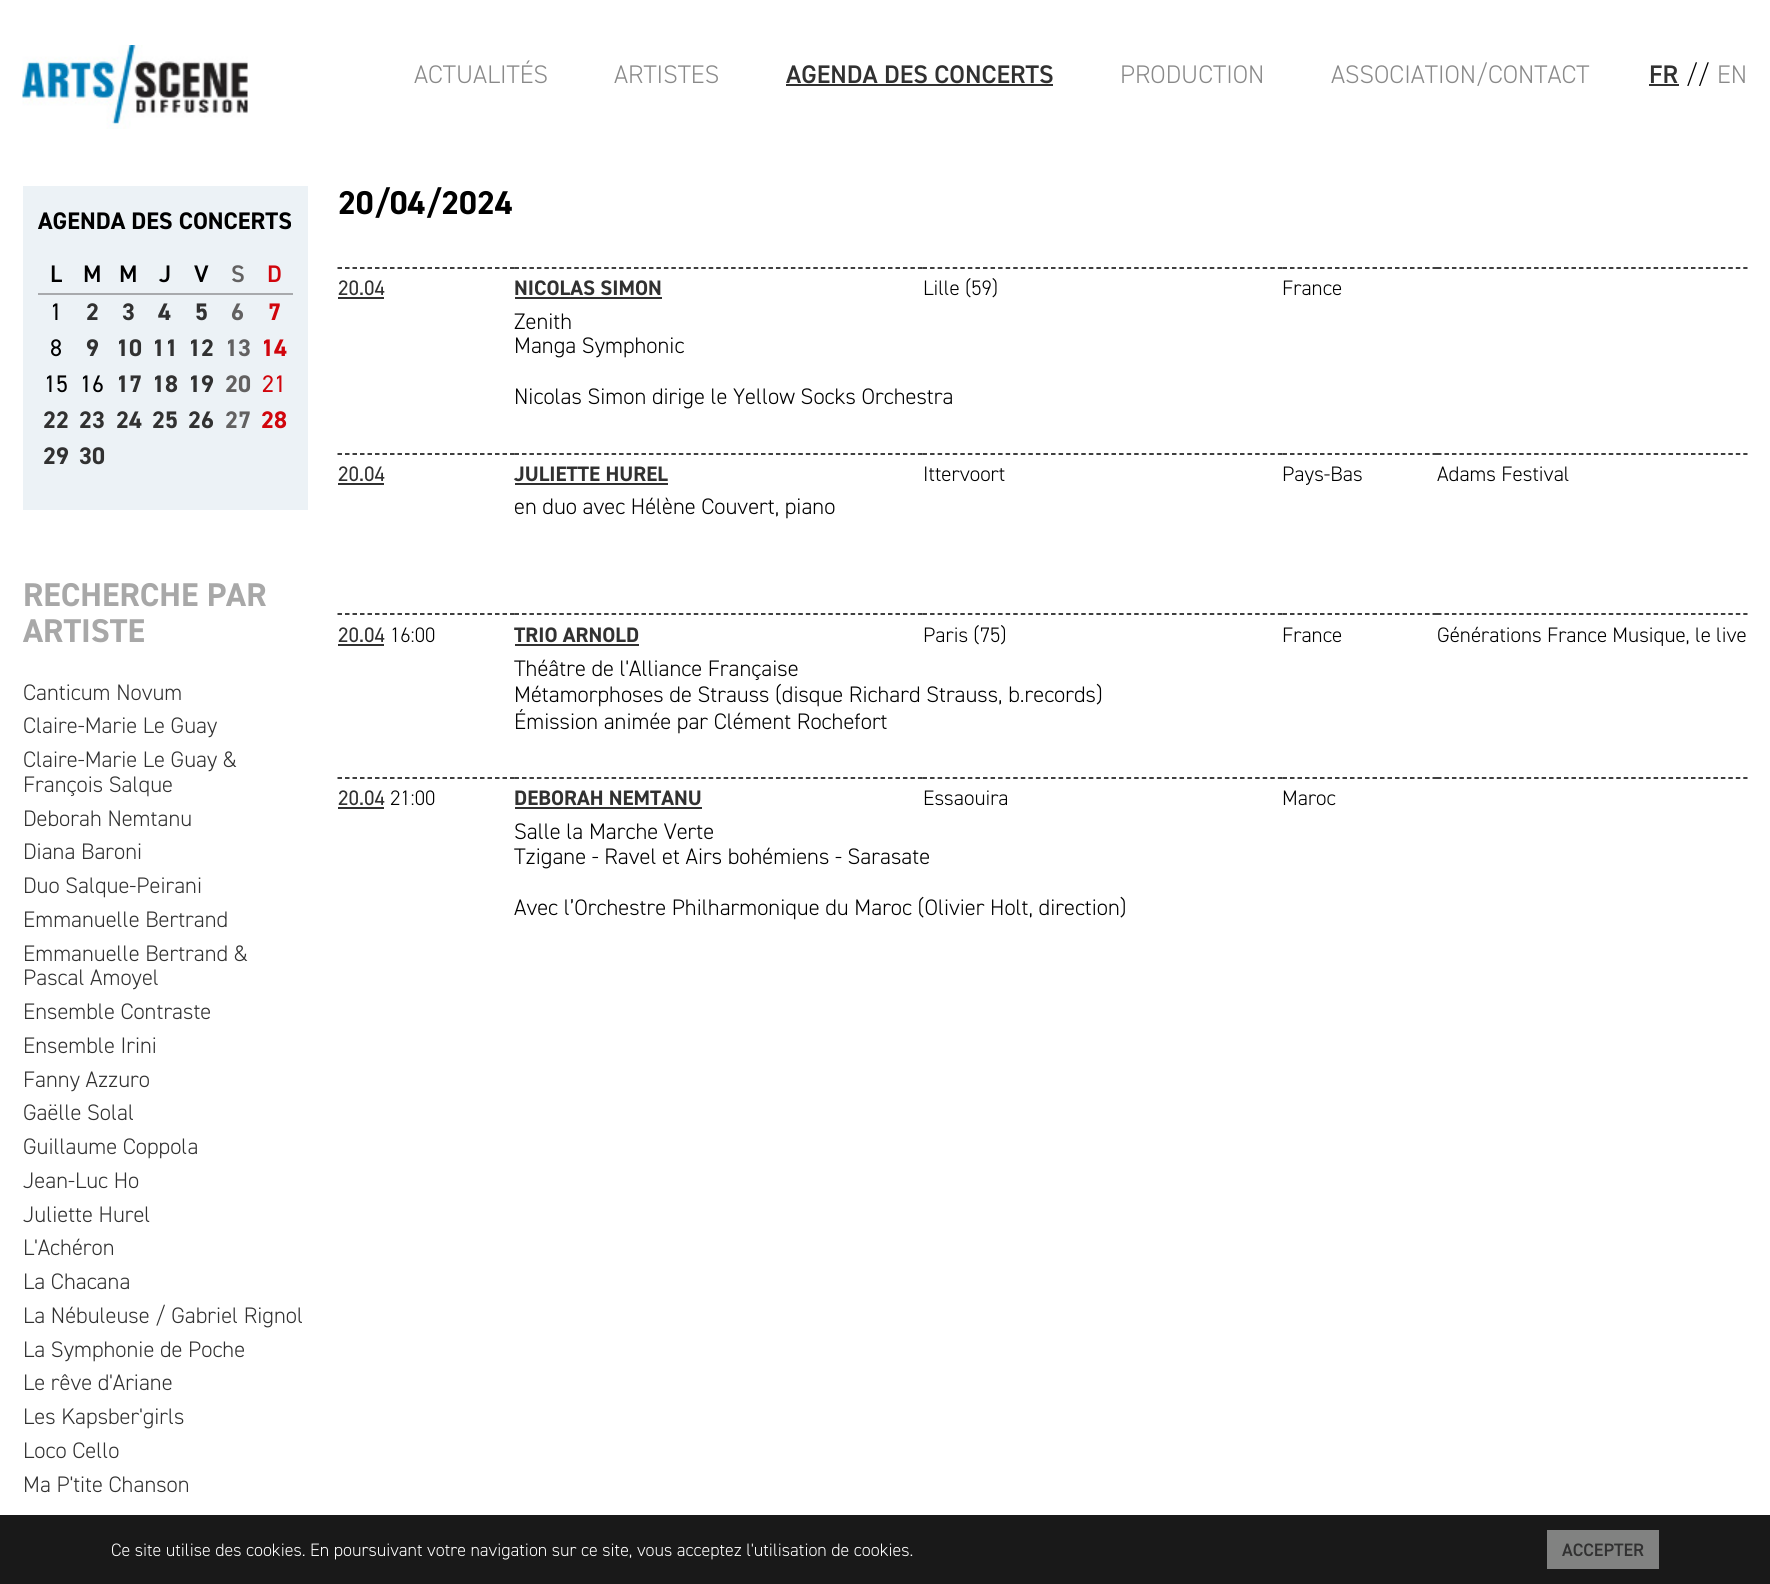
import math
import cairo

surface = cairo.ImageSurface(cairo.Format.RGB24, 1770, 1584)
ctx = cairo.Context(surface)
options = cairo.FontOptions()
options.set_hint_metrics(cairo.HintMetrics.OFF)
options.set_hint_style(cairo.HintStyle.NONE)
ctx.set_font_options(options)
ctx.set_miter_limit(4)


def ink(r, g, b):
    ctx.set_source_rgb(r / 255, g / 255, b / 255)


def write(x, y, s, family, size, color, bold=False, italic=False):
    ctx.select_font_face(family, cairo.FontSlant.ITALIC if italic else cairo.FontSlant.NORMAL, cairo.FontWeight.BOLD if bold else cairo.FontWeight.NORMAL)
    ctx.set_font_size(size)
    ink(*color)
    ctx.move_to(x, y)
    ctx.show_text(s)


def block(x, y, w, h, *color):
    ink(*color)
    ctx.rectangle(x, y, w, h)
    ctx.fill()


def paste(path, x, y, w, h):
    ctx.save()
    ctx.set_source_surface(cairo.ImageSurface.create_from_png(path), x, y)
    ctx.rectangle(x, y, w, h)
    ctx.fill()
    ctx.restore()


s1 = dict(family="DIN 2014 Light", size=25.5, color=(137, 137, 137))
s2 = dict(family="DIN 2014 SemiBold", size=25.5, color=(49, 49, 49))
s3 = dict(family="DIN 2014 Light", size=25.5, color=(0, 0, 0))
s4 = dict(family="DIN 2014", size=24, color=(0, 0, 0), bold=True)
s5 = dict(family="DIN 2014 SemiBold", size=24, color=(0, 0, 0))
s6 = dict(family="DIN 2014 SemiBold", size=24, color=(98, 97, 97))
s7 = dict(family="DIN 2014 SemiBold", size=24, color=(209, 5, 12))
s8 = dict(family="DIN 2014", size=24, color=(0, 0, 0))
s9 = dict(family="DIN 2014", size=24, color=(49, 49, 49), bold=True)
s10 = dict(family="DIN 2014", size=24, color=(98, 97, 97), bold=True)
s11 = dict(family="DIN 2014", size=24, color=(209, 5, 12), bold=True)
s12 = dict(family="DIN 2014", size=24, color=(209, 5, 12))
s13 = dict(family="DIN 2014", size=33, color=(168, 168, 168), bold=True)
s14 = dict(family="DIN 2014 Light", size=22.5, color=(49, 49, 49))
s15 = dict(family="DIN 2014", size=33, color=(0, 0, 0), bold=True)
s16 = dict(family="DIN 2014", size=21, color=(49, 49, 49))
s17 = dict(family="DIN 2014", size=21, color=(49, 49, 49), bold=True)
s18 = dict(family="DIN 2014 Light", size=21, color=(0, 0, 0))
s19 = dict(family="DIN 2014 Light", size=22.5, color=(0, 0, 0))
s20 = dict(family="DIN 2014 Light", size=18, color=(255, 255, 255))
s21 = dict(family="DIN 2014 SemiBold", size=18, color=(49, 49, 49))

ink(255, 255, 255)
ctx.paint()
paste("pic1.png", 22, 45, 226, 84)
write(414, 83, "ACTUALITÉS", **s1)
write(614, 83, "ARTISTES", **s1)
write(786, 83, "AGENDA DES CONCERTS", **s2)
block(786, 84, 267, 2, 49, 49, 49)
write(1120, 83, "PRODUCTION", **s1)
write(1331, 83, "ASSOCIATION/CONTACT", **s1)
write(1649, 83, "FR", **s2)
block(1649, 84, 30, 2, 49, 49, 49)
write(1686, 83, "//", **s3)
write(1717, 83, "EN", **s1)
block(23, 186, 285, 324, 236, 242, 246)
write(38, 229, "AGENDA DES CONCERTS", **s4)
block(38, 293, 255, 2, 168, 170, 173)
write(50, 282, "L", **s5)
write(83, 282, "M", **s5)
write(119, 282, "M", **s5)
write(159, 282, "J", **s5)
write(194, 282, "V", **s5)
write(231, 282, "S", **s6)
write(267, 282, "D", **s7)
write(50, 320, "1", **s8)
write(86, 320, "2", **s9)
write(122, 320, "3", **s9)
write(158, 320, "4", **s9)
write(195, 320, "5", **s9)
write(231, 320, "6", **s10)
write(268, 320, "7", **s11)
write(50, 356, "8", **s8)
write(86, 356, "9", **s9)
write(116, 356, "10", **s9)
write(152, 356, "11", **s9)
write(188, 356, "12", **s9)
write(225, 356, "13", **s10)
write(261, 356, "14", **s11)
write(44, 392, "15", **s8)
write(80, 392, "16", **s8)
write(116, 392, "17", **s9)
write(152, 392, "18", **s9)
write(188, 392, "19", **s9)
write(225, 392, "20", **s10)
write(262, 392, "21", **s12)
write(43, 428, "22", **s9)
write(79, 428, "23", **s9)
write(116, 428, "24", **s9)
write(152, 428, "25", **s9)
write(188, 428, "26", **s9)
write(225, 428, "27", **s10)
write(261, 428, "28", **s11)
write(43, 464, "29", **s9)
write(79, 464, "30", **s9)
write(23, 606, "RECHERCHE PAR", **s13)
write(23, 642, "ARTISTE", **s13)
write(23, 700, "Canticum Novum", **s14)
write(23, 733, "Claire-Marie Le Guay", **s14)
write(23, 767, "Claire-Marie Le Guay &", **s14)
write(23, 792, "François Salque", **s14)
write(23, 826, "Deborah Nemtanu", **s14)
write(23, 859, "Diana Baroni", **s14)
write(23, 893, "Duo Salque-Peirani", **s14)
write(23, 927, "Emmanuelle Bertrand", **s14)
write(23, 961, "Emmanuelle Bertrand &", **s14)
write(23, 985, "Pascal Amoyel", **s14)
write(23, 1019, "Ensemble Contraste", **s14)
write(23, 1053, "Ensemble Irini", **s14)
write(23, 1087, "Fanny Azzuro", **s14)
write(23, 1120, "Gaëlle Solal", **s14)
write(23, 1154, "Guillaume Coppola", **s14)
write(23, 1188, "Jean-Luc Ho", **s14)
write(23, 1222, "Juliette Hurel", **s14)
write(23, 1255, "L'Achéron", **s14)
write(23, 1289, "La Chacana", **s14)
write(23, 1323, "La Nébuleuse / Gabriel Rignol", **s14)
write(23, 1357, "La Symphonie de Poche", **s14)
write(23, 1390, "Le rêve d'Ariane", **s14)
write(23, 1424, "Les Kapsber'girls", **s14)
write(23, 1458, "Loco Cello", **s14)
write(23, 1492, "Ma P'tite Chanson", **s14)
write(338, 214, "20/04/2024", **s15)
ctx.new_path()
ctx.move_to(1437, 268)
ctx.line_to(1747.5, 268)
ctx.set_line_width(1.5)
ctx.set_dash([4.5, 2.97])
ctx.stroke()
ctx.new_path()
ctx.move_to(337.5, 268)
ctx.line_to(514.5, 268)
ctx.set_dash([4.5, 3])
ctx.stroke()
write(338, 295, "20.04", **s16)
block(338, 297, 46, 2, 49, 49, 49)
ctx.new_path()
ctx.move_to(514.5, 268)
ctx.line_to(922.5, 268)
ink(0, 0, 0)
ctx.set_dash([4.5, 2.97])
ctx.stroke()
write(514, 295, "NICOLAS SIMON", **s17)
block(515, 297, 147, 2, 49, 49, 49)
ctx.new_path()
ctx.move_to(922.5, 268)
ctx.line_to(1282.5, 268)
ink(0, 0, 0)
ctx.set_dash([4.5, 3.06])
ctx.stroke()
write(923, 295, "Lille (59)", **s18)
ctx.new_path()
ctx.move_to(1282.5, 268)
ctx.line_to(1437, 268)
ctx.set_dash([4.5, 3])
ctx.stroke()
write(1282, 295, "France", **s18)
write(514, 329, "Zenith", **s19)
write(514, 353, "Manga Symphonic", **s19)
write(514, 404, "Nicolas Simon dirige le Yellow Socks Orchestra", **s19)
ctx.new_path()
ctx.move_to(337.5, 454)
ctx.line_to(514.5, 454)
ctx.stroke()
write(338, 481, "20.04", **s16)
block(338, 483, 46, 2, 49, 49, 49)
ctx.new_path()
ctx.move_to(514.5, 454)
ctx.line_to(922.5, 454)
ink(0, 0, 0)
ctx.set_dash([4.5, 2.97])
ctx.stroke()
write(514, 481, "JULIETTE HUREL", **s17)
block(515, 483, 153, 2, 49, 49, 49)
ctx.new_path()
ctx.move_to(922.5, 454)
ctx.line_to(1282.5, 454)
ink(0, 0, 0)
ctx.set_dash([4.5, 3.06])
ctx.stroke()
write(923, 481, "Ittervoort", **s18)
ctx.new_path()
ctx.move_to(1282.5, 454)
ctx.line_to(1437, 454)
ctx.set_dash([4.5, 3])
ctx.stroke()
write(1282, 481, "Pays-Bas", **s18)
ctx.new_path()
ctx.move_to(1437, 454)
ctx.line_to(1747.5, 454)
ctx.set_dash([4.5, 2.97])
ctx.stroke()
write(1437, 481, "Adams Festival", **s18)
write(514, 514, "en duo avec Hélène Couvert, piano", **s19)
ctx.new_path()
ctx.move_to(337.5, 614)
ctx.line_to(514.5, 614)
ctx.set_dash([4.5, 3])
ctx.stroke()
write(338, 642, "20.04", **s16)
block(338, 644, 46, 2, 49, 49, 49)
write(390, 642, "16:00", **s18)
ctx.new_path()
ctx.move_to(514.5, 614)
ctx.line_to(922.5, 614)
ctx.set_dash([4.5, 2.97])
ctx.stroke()
write(514, 642, "TRIO ARNOLD", **s17)
block(515, 644, 124, 2, 49, 49, 49)
ctx.new_path()
ctx.move_to(922.5, 614)
ctx.line_to(1282.5, 614)
ink(0, 0, 0)
ctx.set_dash([4.5, 3.06])
ctx.stroke()
write(923, 642, "Paris (75)", **s18)
ctx.new_path()
ctx.move_to(1282.5, 614)
ctx.line_to(1437, 614)
ctx.set_dash([4.5, 3])
ctx.stroke()
write(1282, 642, "France", **s18)
ctx.new_path()
ctx.move_to(1437, 614)
ctx.line_to(1747.5, 614)
ctx.set_dash([4.5, 2.97])
ctx.stroke()
write(1437, 642, "Générations France Musique, le live", **s18)
write(514, 676, "Théâtre de l'Alliance Française", **s19)
write(514, 702, "Métamorphoses de Strauss (disque Richard Strauss, b.records)", **s19)
write(514, 729, "Émission animée par Clément Rochefort", **s19)
ctx.new_path()
ctx.move_to(1437, 778)
ctx.line_to(1747.5, 778)
ctx.stroke()
ctx.new_path()
ctx.move_to(337.5, 778)
ctx.line_to(514.5, 778)
ctx.set_dash([4.5, 3])
ctx.stroke()
write(338, 805, "20.04", **s16)
block(338, 807, 46, 2, 49, 49, 49)
write(390, 805, "21:00", **s18)
ctx.new_path()
ctx.move_to(514.5, 778)
ctx.line_to(922.5, 778)
ctx.set_dash([4.5, 2.97])
ctx.stroke()
write(514, 805, "DEBORAH NEMTANU", **s17)
block(515, 807, 187, 2, 49, 49, 49)
ctx.new_path()
ctx.move_to(922.5, 778)
ctx.line_to(1282.5, 778)
ink(0, 0, 0)
ctx.set_dash([4.5, 3.06])
ctx.stroke()
write(923, 805, "Essaouira", **s18)
ctx.new_path()
ctx.move_to(1282.5, 778)
ctx.line_to(1437, 778)
ctx.set_dash([4.5, 3])
ctx.stroke()
write(1282, 805, "Maroc", **s18)
write(514, 839, "Salle la Marche Verte", **s19)
write(514, 864, "Tzigane - Ravel et Airs bohémiens - Sarasate", **s19)
write(514, 915, "Avec l’Orchestre Philharmonique du Maroc (Olivier Holt, direction)", **s19)
ctx.set_source_rgba(0, 0, 0, 0.9)
ctx.rectangle(0, 1515, 1770, 69)
ctx.fill()
write(111, 1556, "Ce site utilise des cookies. En poursuivant votre navigation sur ce site, vous acceptez l'utilisation de cookies.", **s20)
block(1547, 1530, 112, 39, 129, 130, 129)
write(1562, 1556, "ACCEPTER", **s21)
surface.write_to_png("screenshot.png")
